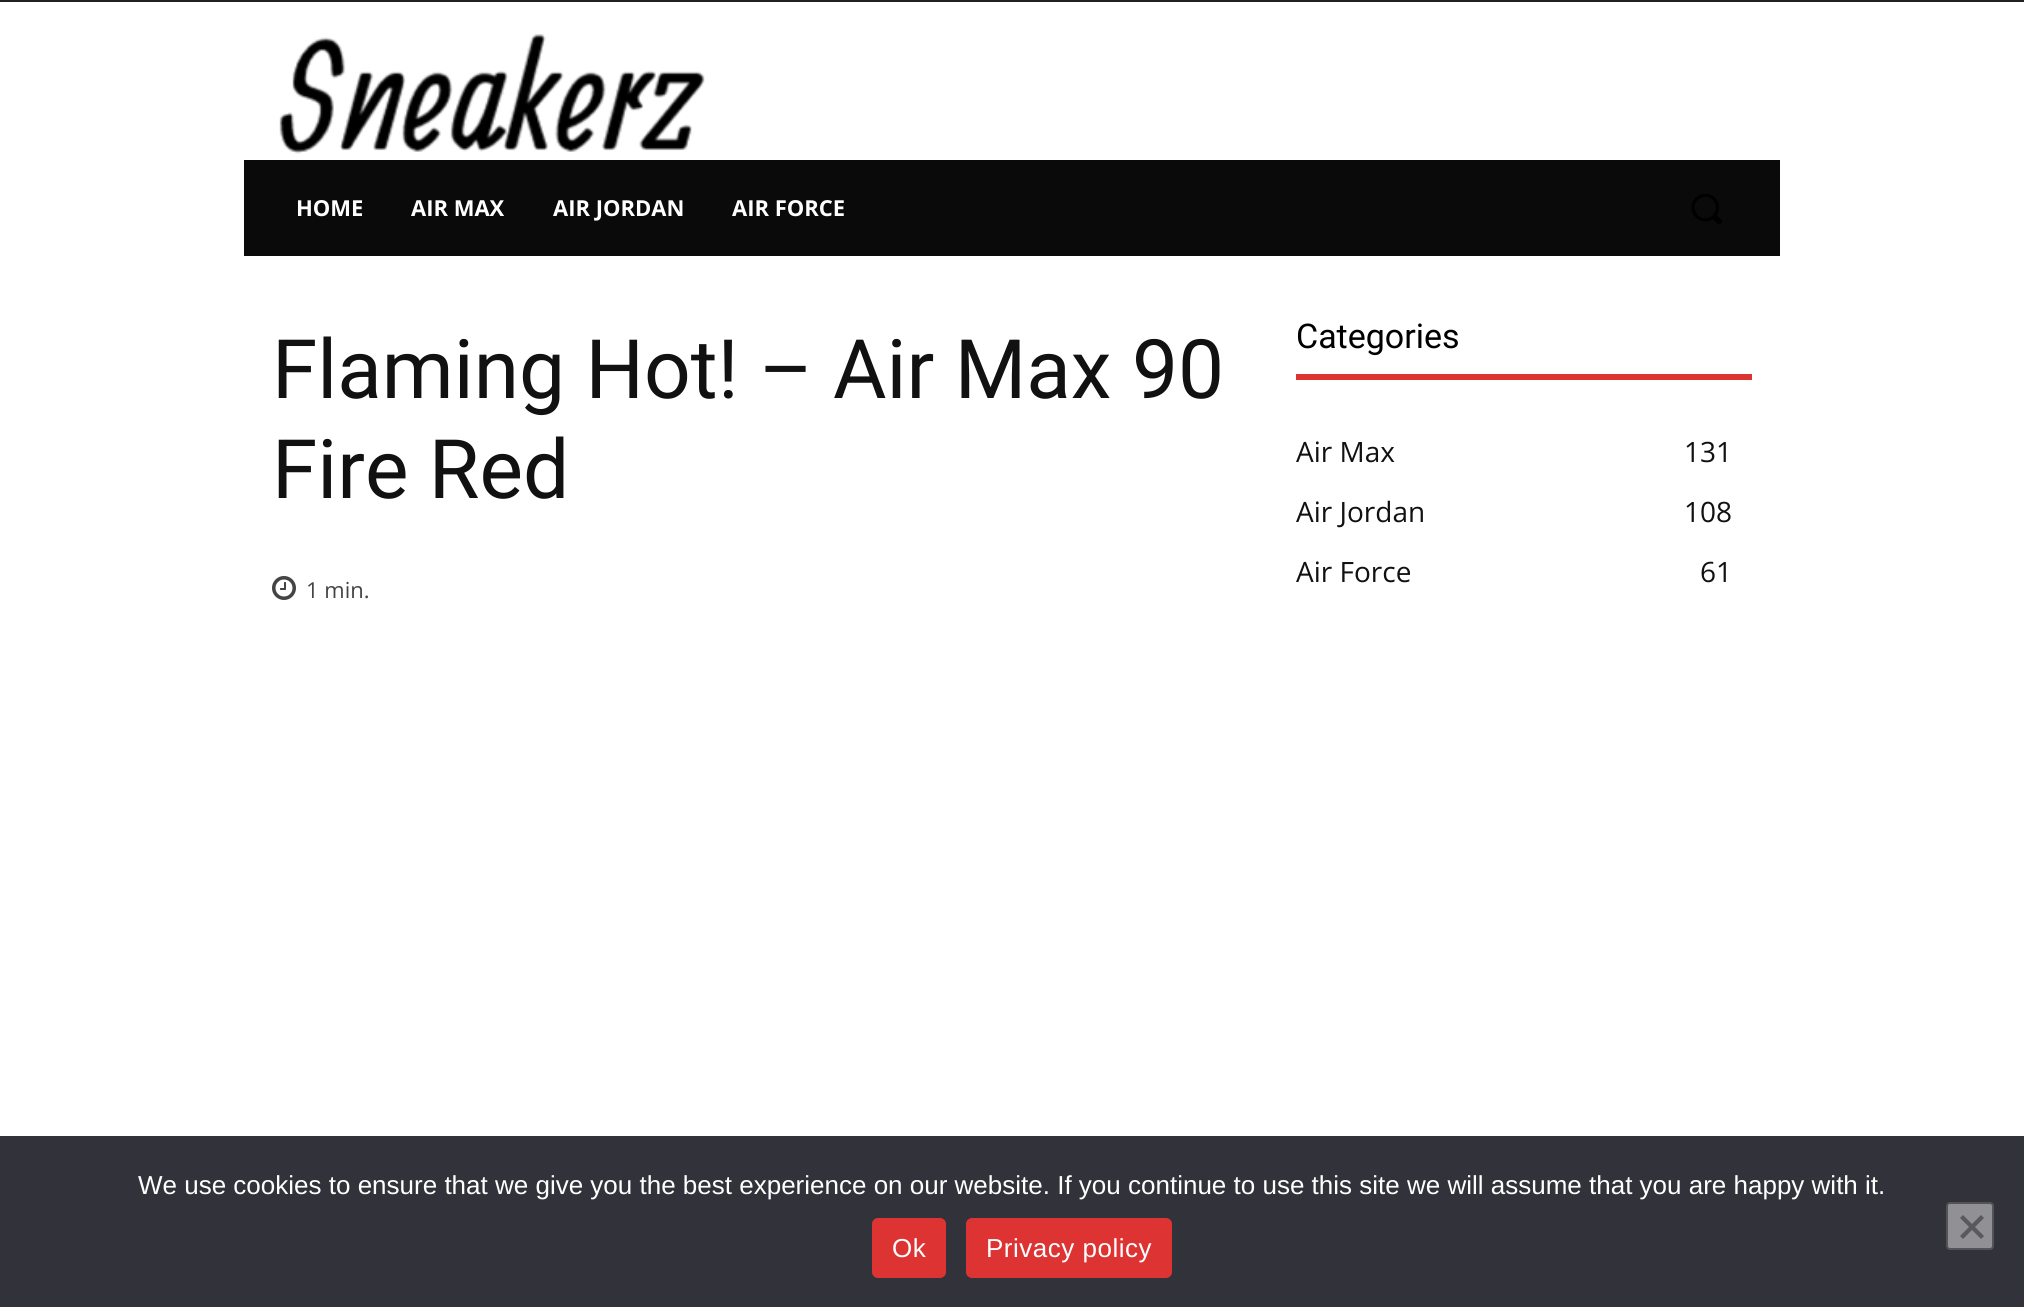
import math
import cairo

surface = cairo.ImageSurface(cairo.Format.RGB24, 2024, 1307)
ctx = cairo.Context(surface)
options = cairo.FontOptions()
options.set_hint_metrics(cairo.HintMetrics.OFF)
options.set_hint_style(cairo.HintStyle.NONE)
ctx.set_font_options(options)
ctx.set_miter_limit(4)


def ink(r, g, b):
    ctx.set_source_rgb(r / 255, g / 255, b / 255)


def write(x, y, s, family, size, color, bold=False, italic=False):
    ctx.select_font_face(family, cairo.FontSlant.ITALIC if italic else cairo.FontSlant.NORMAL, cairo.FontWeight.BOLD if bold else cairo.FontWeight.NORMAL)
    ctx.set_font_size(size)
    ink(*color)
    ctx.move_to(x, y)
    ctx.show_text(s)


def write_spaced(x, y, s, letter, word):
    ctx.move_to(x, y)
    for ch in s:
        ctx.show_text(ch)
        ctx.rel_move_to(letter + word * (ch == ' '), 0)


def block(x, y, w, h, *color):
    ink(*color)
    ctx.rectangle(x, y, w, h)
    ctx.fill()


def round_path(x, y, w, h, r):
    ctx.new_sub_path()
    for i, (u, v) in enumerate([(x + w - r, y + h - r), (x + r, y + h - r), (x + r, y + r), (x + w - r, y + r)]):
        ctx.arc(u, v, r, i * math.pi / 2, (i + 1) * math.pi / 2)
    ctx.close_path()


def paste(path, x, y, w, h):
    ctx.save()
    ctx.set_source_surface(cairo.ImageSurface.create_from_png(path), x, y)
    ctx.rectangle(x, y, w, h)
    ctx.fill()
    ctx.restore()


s1 = dict(family="Open Sans", size=22, color=(255, 255, 255), bold=True)
s2 = dict(family="Roboto", size=82, color=(17, 17, 17))
s3 = dict(family="Open Sans", size=22, color=(68, 68, 68))
s4 = dict(family="Roboto", size=34, color=(0, 0, 0))
s5 = dict(family="Open Sans", size=28, color=(17, 17, 17))
s6 = dict(family="Liberation Sans", size=26, color=(255, 255, 255))

ink(255, 255, 255)
ctx.paint()
block(0, 0, 2024, 2, 34, 34, 34)
paste("pic1.png", 279, 34, 426, 120)
block(244, 160, 1536, 96, 10, 10, 10)
write(296, 216, "HOME", **s1)
write(411, 216, "AIR MAX", **s1)
write(553, 216, "AIR JORDAN", **s1)
write(732, 216, "AIR FORCE", **s1)
paste("pic2.png", 1691, 194, 31, 30)
write(272, 398, "Flaming Hot! – Air Max 90", **s2)
write(272, 498, "Fire Red", **s2)
paste("pic3.png", 272, 576, 24, 24)
write(306, 598, "1 min.", **s3)
write(1296, 348, "Categories", **s4)
block(1296, 374, 456, 6, 221, 51, 51)
write(1296, 462, "Air Max", **s5)
write(1684, 462, "131", **s5)
write(1296, 522, "Air Jordan", **s5)
write(1684, 522, "108", **s5)
write(1296, 582, "Air Force", **s5)
write(1700, 582, "61", **s5)
block(0, 1136, 2024, 171, 50, 50, 58)
write(138, 1194, "We use cookies to ensure that we give you the best experience on our website. If you continue to use this site we will assume that you are happy with it.", **s6)
ink(221, 51, 51)
round_path(872, 1218, 74, 60, 6)
ctx.fill()
ink(255, 255, 255)
write_spaced(892, 1257, "Ok", 0.5, 0)
ink(221, 51, 51)
round_path(966, 1218, 206, 60, 6)
ctx.fill()
ink(255, 255, 255)
write_spaced(986, 1257, "Privacy policy", 0.5, 0)
ink(145, 145, 149)
round_path(1947, 1203, 46, 46, 3)
ctx.fill_preserve()
ink(84, 84, 88)
ctx.stroke()
ink(89, 89, 93)
ctx.new_path()
ctx.move_to(1981, 1215)
ctx.line_to(1984, 1218)
ctx.line_to(1963, 1239)
ctx.line_to(1960, 1236)
ctx.close_path()
ctx.fill()
ctx.new_path()
ctx.move_to(1960, 1218)
ctx.line_to(1963, 1215)
ctx.line_to(1984, 1236)
ctx.line_to(1981, 1239)
ctx.close_path()
ctx.fill()
surface.write_to_png("screenshot.png")
